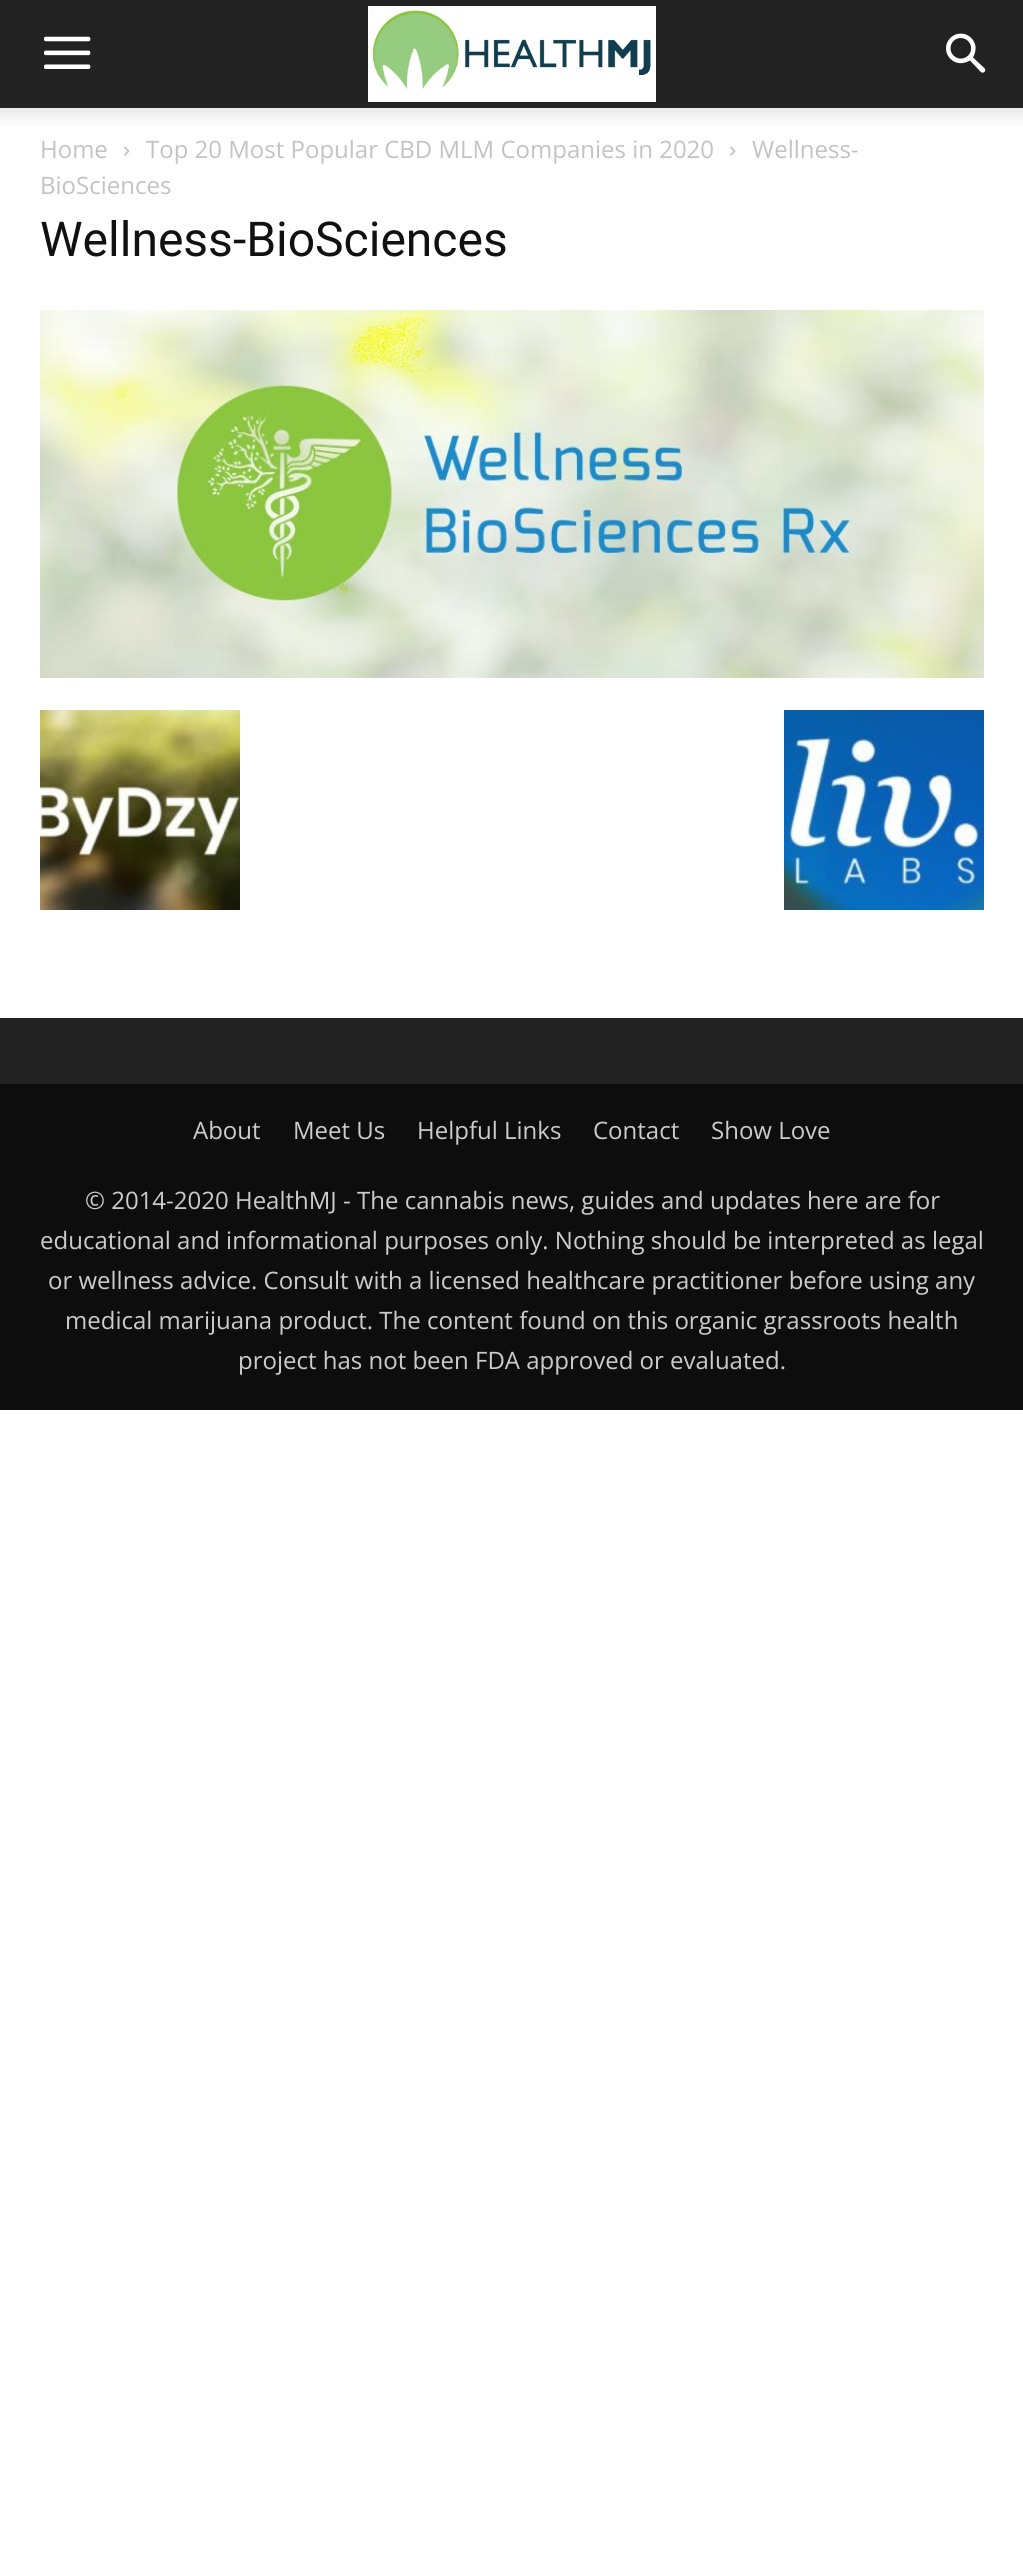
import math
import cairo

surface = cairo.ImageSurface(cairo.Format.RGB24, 1023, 2571)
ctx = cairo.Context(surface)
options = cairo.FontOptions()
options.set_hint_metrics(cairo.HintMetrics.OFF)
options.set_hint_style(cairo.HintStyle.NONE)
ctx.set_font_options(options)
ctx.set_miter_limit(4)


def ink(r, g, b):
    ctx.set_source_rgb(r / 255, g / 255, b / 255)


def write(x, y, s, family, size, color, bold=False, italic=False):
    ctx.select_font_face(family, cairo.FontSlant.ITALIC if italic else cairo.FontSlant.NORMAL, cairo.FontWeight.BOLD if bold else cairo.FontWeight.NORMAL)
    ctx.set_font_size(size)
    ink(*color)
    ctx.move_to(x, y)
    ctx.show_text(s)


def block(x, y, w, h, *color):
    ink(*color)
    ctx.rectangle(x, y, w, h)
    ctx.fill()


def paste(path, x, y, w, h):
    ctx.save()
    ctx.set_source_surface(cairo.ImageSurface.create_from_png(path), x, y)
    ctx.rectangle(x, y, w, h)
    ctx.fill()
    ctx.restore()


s1 = dict(family="Open Sans", size=24, color=(195, 195, 195))
s2 = dict(family="Roboto", size=48, color=(17, 17, 17))
s3 = dict(family="Open Sans", size=24, color=(204, 204, 204))

ink(255, 255, 255)
ctx.paint()
block(0, 0, 1023, 108, 34, 34, 34)
paste("pic1.png", 44, 36, 47, 33)
paste("pic2.png", 368, 6, 288, 96)
paste("pic3.png", 946, 33, 40, 40)
paste("pic4.png", 0, 108, 1023, 17)
write(40, 158, "Home", **s1)
paste("pic5.png", 124, 146, 6, 10)
write(146, 158, "Top 20 Most Popular CBD MLM Companies in 2020", **s1)
paste("pic5.png", 730, 146, 6, 10)
write(752, 158, "Wellness-", **s1)
write(40, 194, "BioSciences", **s1)
write(40, 256, "Wellness-BioSciences", **s2)
paste("pic6.png", 40, 310, 944, 368)
paste("pic7.png", 40, 710, 200, 200)
paste("pic8.png", 784, 710, 200, 200)
block(0, 1018, 1023, 66, 34, 34, 34)
block(0, 1084, 1023, 326, 13, 13, 13)
write(193, 1139, "About", **s3)
write(293, 1139, "Meet Us", **s3)
write(417, 1139, "Helpful Links", **s3)
write(593, 1139, "Contact", **s3)
write(711, 1139, "Show Love", **s3)
write(85, 1209, "© 2014-2020 HealthMJ - The cannabis news, guides and updates here are for", **s3)
write(40, 1249, "educational and informational purposes only. Nothing should be interpreted as legal", **s3)
write(48, 1289, "or wellness advice. Consult with a licensed healthcare practitioner before using any", **s3)
write(65, 1329, "medical marijuana product. The content found on this organic grassroots health", **s3)
write(238, 1369, "project has not been FDA approved or evaluated.", **s3)
surface.write_to_png("screenshot.png")
